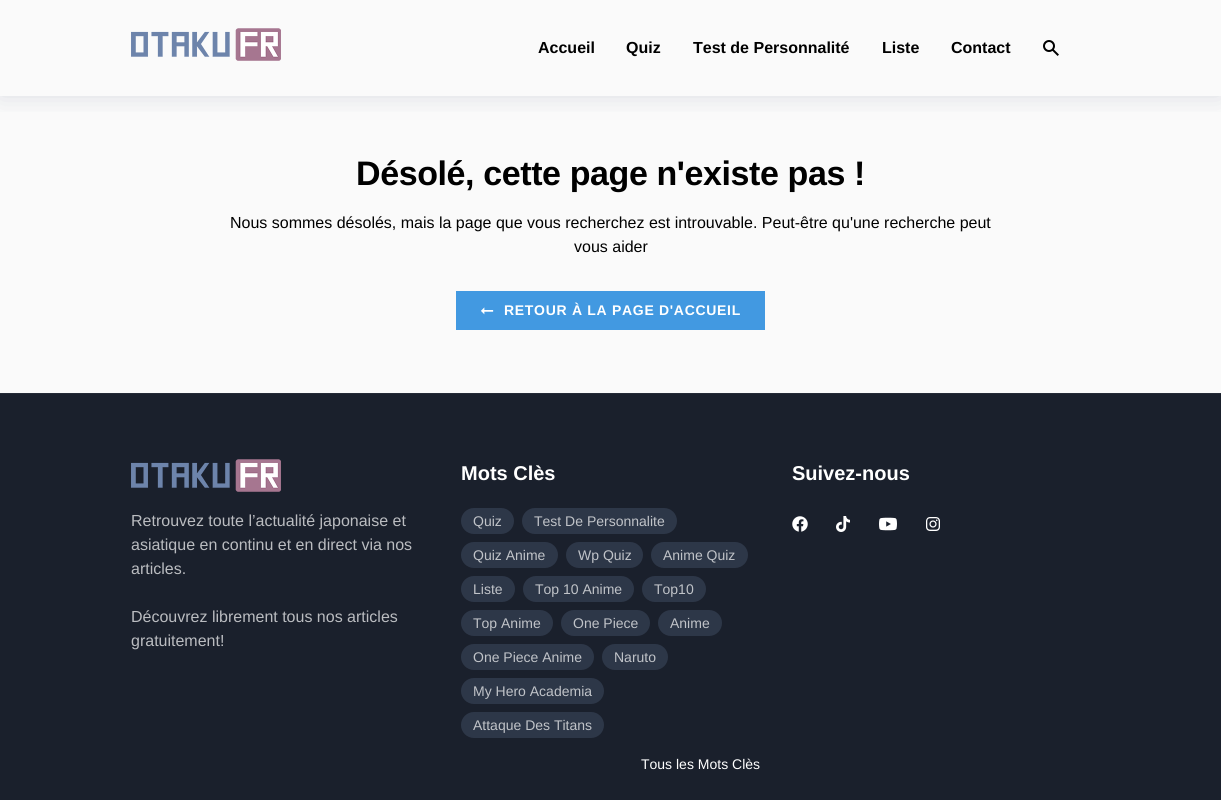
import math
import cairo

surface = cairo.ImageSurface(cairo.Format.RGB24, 1221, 800)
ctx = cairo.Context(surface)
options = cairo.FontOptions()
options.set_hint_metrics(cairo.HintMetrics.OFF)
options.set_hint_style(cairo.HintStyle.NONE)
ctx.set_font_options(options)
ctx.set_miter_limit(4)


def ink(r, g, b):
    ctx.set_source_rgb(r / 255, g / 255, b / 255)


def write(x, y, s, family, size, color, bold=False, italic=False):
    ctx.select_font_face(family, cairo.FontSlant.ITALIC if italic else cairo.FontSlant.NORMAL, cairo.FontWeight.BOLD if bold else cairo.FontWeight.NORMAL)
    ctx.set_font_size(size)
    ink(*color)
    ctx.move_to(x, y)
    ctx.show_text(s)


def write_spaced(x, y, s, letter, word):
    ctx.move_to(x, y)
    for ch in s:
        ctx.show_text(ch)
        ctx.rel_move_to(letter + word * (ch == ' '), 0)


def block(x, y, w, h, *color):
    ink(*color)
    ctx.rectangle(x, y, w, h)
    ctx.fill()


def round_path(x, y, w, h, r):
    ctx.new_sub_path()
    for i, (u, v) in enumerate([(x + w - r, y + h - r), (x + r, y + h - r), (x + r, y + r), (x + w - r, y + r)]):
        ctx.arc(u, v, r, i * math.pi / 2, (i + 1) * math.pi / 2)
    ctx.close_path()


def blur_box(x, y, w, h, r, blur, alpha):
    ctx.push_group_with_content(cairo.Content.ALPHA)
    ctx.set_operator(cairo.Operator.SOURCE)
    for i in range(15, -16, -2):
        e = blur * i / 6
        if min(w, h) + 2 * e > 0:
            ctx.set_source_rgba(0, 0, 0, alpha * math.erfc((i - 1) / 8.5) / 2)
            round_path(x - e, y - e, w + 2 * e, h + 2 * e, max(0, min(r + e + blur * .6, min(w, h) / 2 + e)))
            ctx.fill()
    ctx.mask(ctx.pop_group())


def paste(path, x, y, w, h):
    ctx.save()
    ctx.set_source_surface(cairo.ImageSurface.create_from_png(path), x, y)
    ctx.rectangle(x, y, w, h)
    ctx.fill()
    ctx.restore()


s1 = dict(family="Liberation Sans", size=16, color=(0, 0, 0), bold=True)
s2 = dict(family="Liberation Sans", size=16, color=(0, 0, 0))
s3 = dict(family="Liberation Sans", size=20, color=(255, 255, 255), bold=True)
s4 = dict(family="Liberation Sans", size=14, color=(192, 195, 200))
s5 = dict(family="Liberation Sans", size=14, color=(255, 255, 255))
s6 = dict(family="Liberation Sans", size=16, color=(186, 188, 192))

ink(250, 250, 250)
ctx.paint()
ctx.save()
ctx.rectangle(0, 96, 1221, 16)
ctx.clip()
ink(94, 106, 135)
blur_box(0, 0, 1221, 96, 0, 12.5, 0.2)
ctx.restore()
paste("pic1.png", 131, 28, 150, 33)
write(538, 53, "Accueil", **s1)
write(626, 53, "Quiz", **s1)
write(693, 53, "Test de Personnalité", **s1)
write(882, 53, "Liste", **s1)
write(951, 53, "Contact", **s1)
paste("pic2.png", 1043, 40, 16, 16)
ctx.set_font_size(34)
write_spaced(356, 185, "Désolé, cette page n'existe pas !", -0.4, 0)
write(230, 228, "Nous sommes désolés, mais la page que vous recherchez est introuvable. Peut-être qu'une recherche peut", **s2)
write(574, 252, "vous aider", **s2)
block(456, 291, 309, 39, 66, 153, 225)
paste("pic3.png", 481, 307, 13, 8)
ctx.select_font_face("Liberation Sans", cairo.FontSlant.NORMAL, cairo.FontWeight.BOLD)
ctx.set_font_size(14)
ink(255, 255, 255)
write_spaced(504, 315, "RETOUR À LA PAGE D'ACCUEIL", 0.7, 0)
block(0, 394, 1221, 406, 26, 32, 44)
block(0, 393, 1221, 1, 37, 43, 55)
write(461, 480, "Mots Clès", **s3)
ink(45, 55, 72)
round_path(461, 508, 53, 26, 13)
ctx.fill()
write(473, 526, "Quiz", **s4)
ink(45, 55, 72)
round_path(522, 508, 155, 26, 13)
ctx.fill()
write(534, 526, "Test De Personnalite", **s4)
ink(45, 55, 72)
round_path(461, 542, 97, 26, 13)
ctx.fill()
write(473, 560, "Quiz Anime", **s4)
ink(45, 55, 72)
round_path(566, 542, 77, 26, 13)
ctx.fill()
write(578, 560, "Wp Quiz", **s4)
ink(45, 55, 72)
round_path(651, 542, 97, 26, 13)
ctx.fill()
write(663, 560, "Anime Quiz", **s4)
ink(45, 55, 72)
round_path(461, 576, 54, 26, 13)
ctx.fill()
write(473, 594, "Liste", **s4)
ink(45, 55, 72)
round_path(523, 576, 111, 26, 13)
ctx.fill()
write(535, 594, "Top 10 Anime", **s4)
ink(45, 55, 72)
round_path(642, 576, 64, 26, 13)
ctx.fill()
write(654, 594, "Top10", **s4)
ink(45, 55, 72)
round_path(461, 610, 92, 26, 13)
ctx.fill()
write(473, 628, "Top Anime", **s4)
ink(45, 55, 72)
round_path(561, 610, 89, 26, 13)
ctx.fill()
write(573, 628, "One Piece", **s4)
ink(45, 55, 72)
round_path(658, 610, 64, 26, 13)
ctx.fill()
write(670, 628, "Anime", **s4)
ink(45, 55, 72)
round_path(461, 644, 133, 26, 13)
ctx.fill()
write(473, 662, "One Piece Anime", **s4)
ink(45, 55, 72)
round_path(602, 644, 66, 26, 13)
ctx.fill()
write(614, 662, "Naruto", **s4)
ink(45, 55, 72)
round_path(461, 678, 143, 26, 13)
ctx.fill()
write(473, 696, "My Hero Academia", **s4)
ink(45, 55, 72)
round_path(461, 712, 143, 26, 13)
ctx.fill()
write(473, 730, "Attaque Des Titans", **s4)
write(641, 769, "Tous les Mots Clès", **s5)
write(792, 480, "Suivez-nous", **s3)
paste("pic4.png", 792, 516, 16, 16)
paste("pic5.png", 836, 516, 14, 16)
paste("pic6.png", 879, 517, 18, 14)
paste("pic7.png", 926, 517, 14, 14)
paste("pic8.png", 131, 459, 150, 33)
write(131, 526, "Retrouvez toute l’actualité japonaise et", **s6)
write(131, 550, "asiatique en continu et en direct via nos", **s6)
write(131, 574, "articles.", **s6)
write(131, 622, "Découvrez librement tous nos articles", **s6)
write(131, 646, "gratuitement!", **s6)
surface.write_to_png("screenshot.png")
